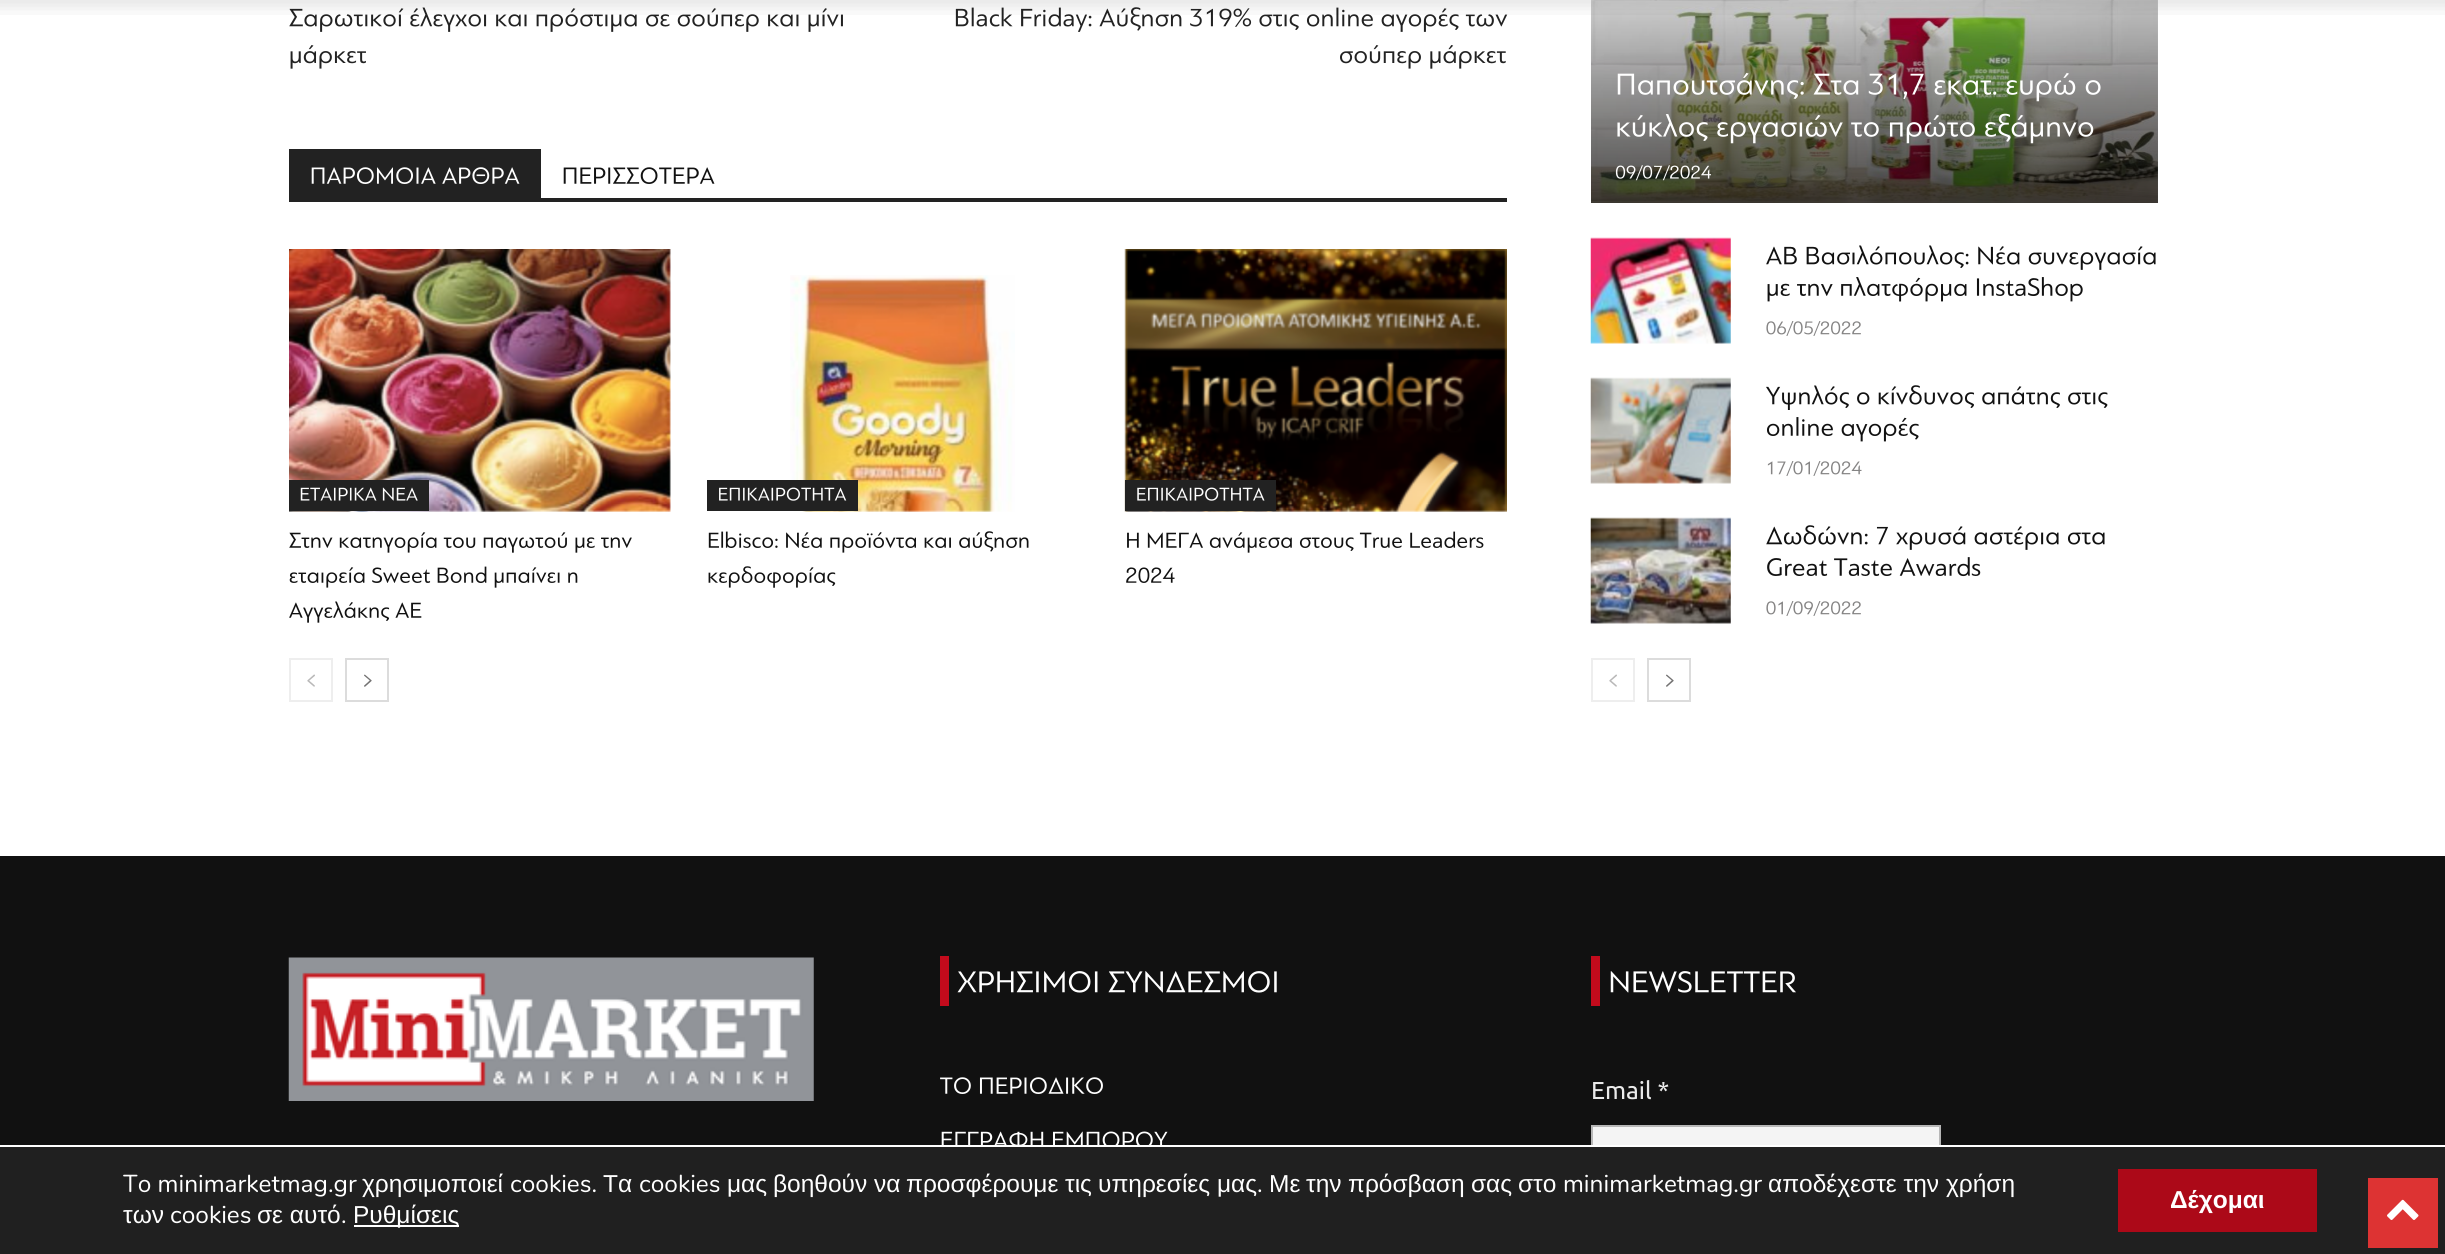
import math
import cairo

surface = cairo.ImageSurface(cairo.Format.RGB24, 2445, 1254)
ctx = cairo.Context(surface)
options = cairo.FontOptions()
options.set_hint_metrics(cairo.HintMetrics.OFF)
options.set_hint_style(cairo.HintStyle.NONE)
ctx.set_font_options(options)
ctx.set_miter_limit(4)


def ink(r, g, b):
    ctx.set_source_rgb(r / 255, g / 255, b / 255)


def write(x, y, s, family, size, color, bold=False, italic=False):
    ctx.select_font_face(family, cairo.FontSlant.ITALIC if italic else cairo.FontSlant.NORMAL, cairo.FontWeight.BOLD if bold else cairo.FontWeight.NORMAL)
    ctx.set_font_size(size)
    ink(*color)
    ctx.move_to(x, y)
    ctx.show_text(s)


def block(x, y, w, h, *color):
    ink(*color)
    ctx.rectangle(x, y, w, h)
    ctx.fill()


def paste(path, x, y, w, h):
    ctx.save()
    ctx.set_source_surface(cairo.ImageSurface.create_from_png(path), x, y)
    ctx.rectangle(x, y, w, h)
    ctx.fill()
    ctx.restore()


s1 = dict(family="Ubuntu", size=24.5, color=(234, 234, 234))
s2 = dict(family="Nunito", size=24.5, color=(255, 255, 255))
s3 = dict(family="Liberation Sans", size=24.5, color=(255, 255, 255))
s4 = dict(family="Liberation Sans", size=24.5, color=(255, 255, 255), bold=True)

ink(255, 255, 255)
ctx.paint()
paste("pic2.png", 289, 7, 554, 25)
paste("pic4.png", 955, 7, 553, 25)
paste("pic23.png", 1591, 0, 567, 203)
gradient = cairo.LinearGradient(1874, -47, 1874, 203)
gradient.add_color_stop_rgba(0, 0, 0, 0, 0)
gradient.add_color_stop_rgba(1, 0, 0, 0, 0.7)
ctx.set_source(gradient)
ctx.rectangle(1591, 0, 567, 203)
ctx.fill()
paste("pic1.png", 0, 0, 2445, 15)
paste("pic3.png", 290, 45, 76, 24)
paste("pic5.png", 1340, 45, 166, 24)
block(289, 198, 1218, 4, 34, 34, 34)
block(289, 149, 252, 49, 34, 34, 34)
paste("pic6.png", 311, 167, 209, 17)
paste("pic7.png", 563, 167, 152, 17)
paste("pic8.png", 289, 249, 382, 263)
block(289, 480, 140, 31, 34, 34, 34)
paste("pic9.png", 300, 487, 118, 14)
paste("pic10.png", 289, 532, 343, 21)
paste("pic11.png", 289, 566, 289, 22)
paste("pic12.png", 289, 601, 133, 22)
paste("pic14.png", 790, 275, 225, 237)
block(707, 480, 151, 31, 34, 34, 34)
paste("pic13.png", 719, 487, 128, 14)
paste("pic15.png", 708, 531, 321, 22)
paste("pic16.png", 708, 566, 128, 22)
paste("pic17.png", 1124, 249, 383, 263)
block(1125, 480, 151, 31, 34, 34, 34)
paste("pic18.png", 1137, 487, 128, 14)
paste("pic19.png", 1127, 531, 357, 22)
paste("pic20.png", 1126, 567, 49, 16)
ctx.rectangle(290, 659, 42, 42)
ink(238, 238, 238)
ctx.stroke()
paste("pic21.png", 307, 674, 8, 13)
ctx.rectangle(346, 659, 42, 42)
ink(220, 220, 220)
ctx.stroke()
paste("pic22.png", 364, 674, 8, 13)
paste("pic24.png", 1617, 72, 484, 30)
paste("pic25.png", 1617, 113, 477, 31)
paste("pic26.png", 1615, 165, 96, 16)
paste("pic27.png", 1590, 237, 141, 107)
paste("pic28.png", 1766, 245, 390, 25)
paste("pic29.png", 1767, 277, 316, 25)
paste("pic30.png", 1766, 321, 95, 15)
paste("pic31.png", 1590, 377, 141, 107)
paste("pic32.png", 1766, 385, 342, 25)
paste("pic33.png", 1767, 417, 152, 25)
paste("pic34.png", 1767, 461, 95, 15)
paste("pic35.png", 1590, 517, 141, 107)
paste("pic36.png", 1766, 525, 339, 25)
paste("pic37.png", 1767, 557, 214, 20)
paste("pic38.png", 1766, 601, 95, 15)
ctx.rectangle(1592, 659, 42, 42)
ink(238, 238, 238)
ctx.stroke()
paste("pic21.png", 1609, 674, 8, 13)
ctx.rectangle(1648, 659, 42, 42)
ink(220, 220, 220)
ctx.stroke()
paste("pic22.png", 1666, 674, 8, 13)
block(0, 856, 2445, 289, 17, 17, 17)
paste("pic39.png", 288, 957, 526, 144)
block(940, 956, 9, 50, 195, 11, 28)
paste("pic40.png", 957, 971, 320, 22)
paste("pic41.png", 940, 1077, 163, 17)
paste("pic42.png", 941, 1131, 227, 14)
block(1591, 956, 9, 50, 195, 11, 28)
paste("pic43.png", 1610, 971, 186, 22)
write(1591, 1099, "Email *", **s1)
block(1593, 1127, 346, 18, 244, 244, 244)
ctx.rectangle(1592, 1126, 348, 58)
ink(183, 183, 183)
ctx.stroke()
block(0, 1147, 2445, 107, 32, 32, 32)
block(1591, 1145, 350, 2, 255, 255, 255)
write(123, 1192, "To minimarketmag.gr", **s2)
write(362, 1192, "χρησιμοποιεί", **s3)
write(510, 1192, "cookies.", **s2)
write(603, 1192, "Τα", **s3)
write(639, 1192, "cookies", **s2)
write(727, 1192, "μας", **s3)
write(773, 1192, "βοηθούν", **s3)
write(874, 1192, "να", **s3)
write(906, 1192, "προσφέρουμε", **s3)
write(1065, 1192, "τις", **s3)
write(1098, 1192, "υπηρεσίες", **s3)
write(1217, 1192, "μας", **s3)
write(1257, 1192, ".", **s2)
write(1269, 1192, "Με", **s3)
write(1306, 1192, "την", **s3)
write(1348, 1192, "πρόσβαση", **s3)
write(1471, 1192, "σας", **s3)
write(1518, 1192, "στο", **s3)
write(1563, 1192, "minimarketmag.gr", **s2)
write(1768, 1192, "αποδέχεστε την χρήση", **s3)
write(123, 1223, "των", **s3)
write(170, 1223, "cookies", **s2)
write(257, 1223, "σε αυτό", **s3)
write(341, 1223, ".", **s2)
block(354, 1225, 105, 2, 255, 255, 255)
write(353, 1223, "Ρυθμίσεις", **s3)
block(2118, 1169, 199, 63, 172, 9, 24)
write(2170, 1208, "Δέχομαι", **s4)
block(2368, 1178, 70, 70, 221, 51, 51)
paste("pic44.png", 2387, 1199, 32, 21)
surface.write_to_png("screenshot.png")
